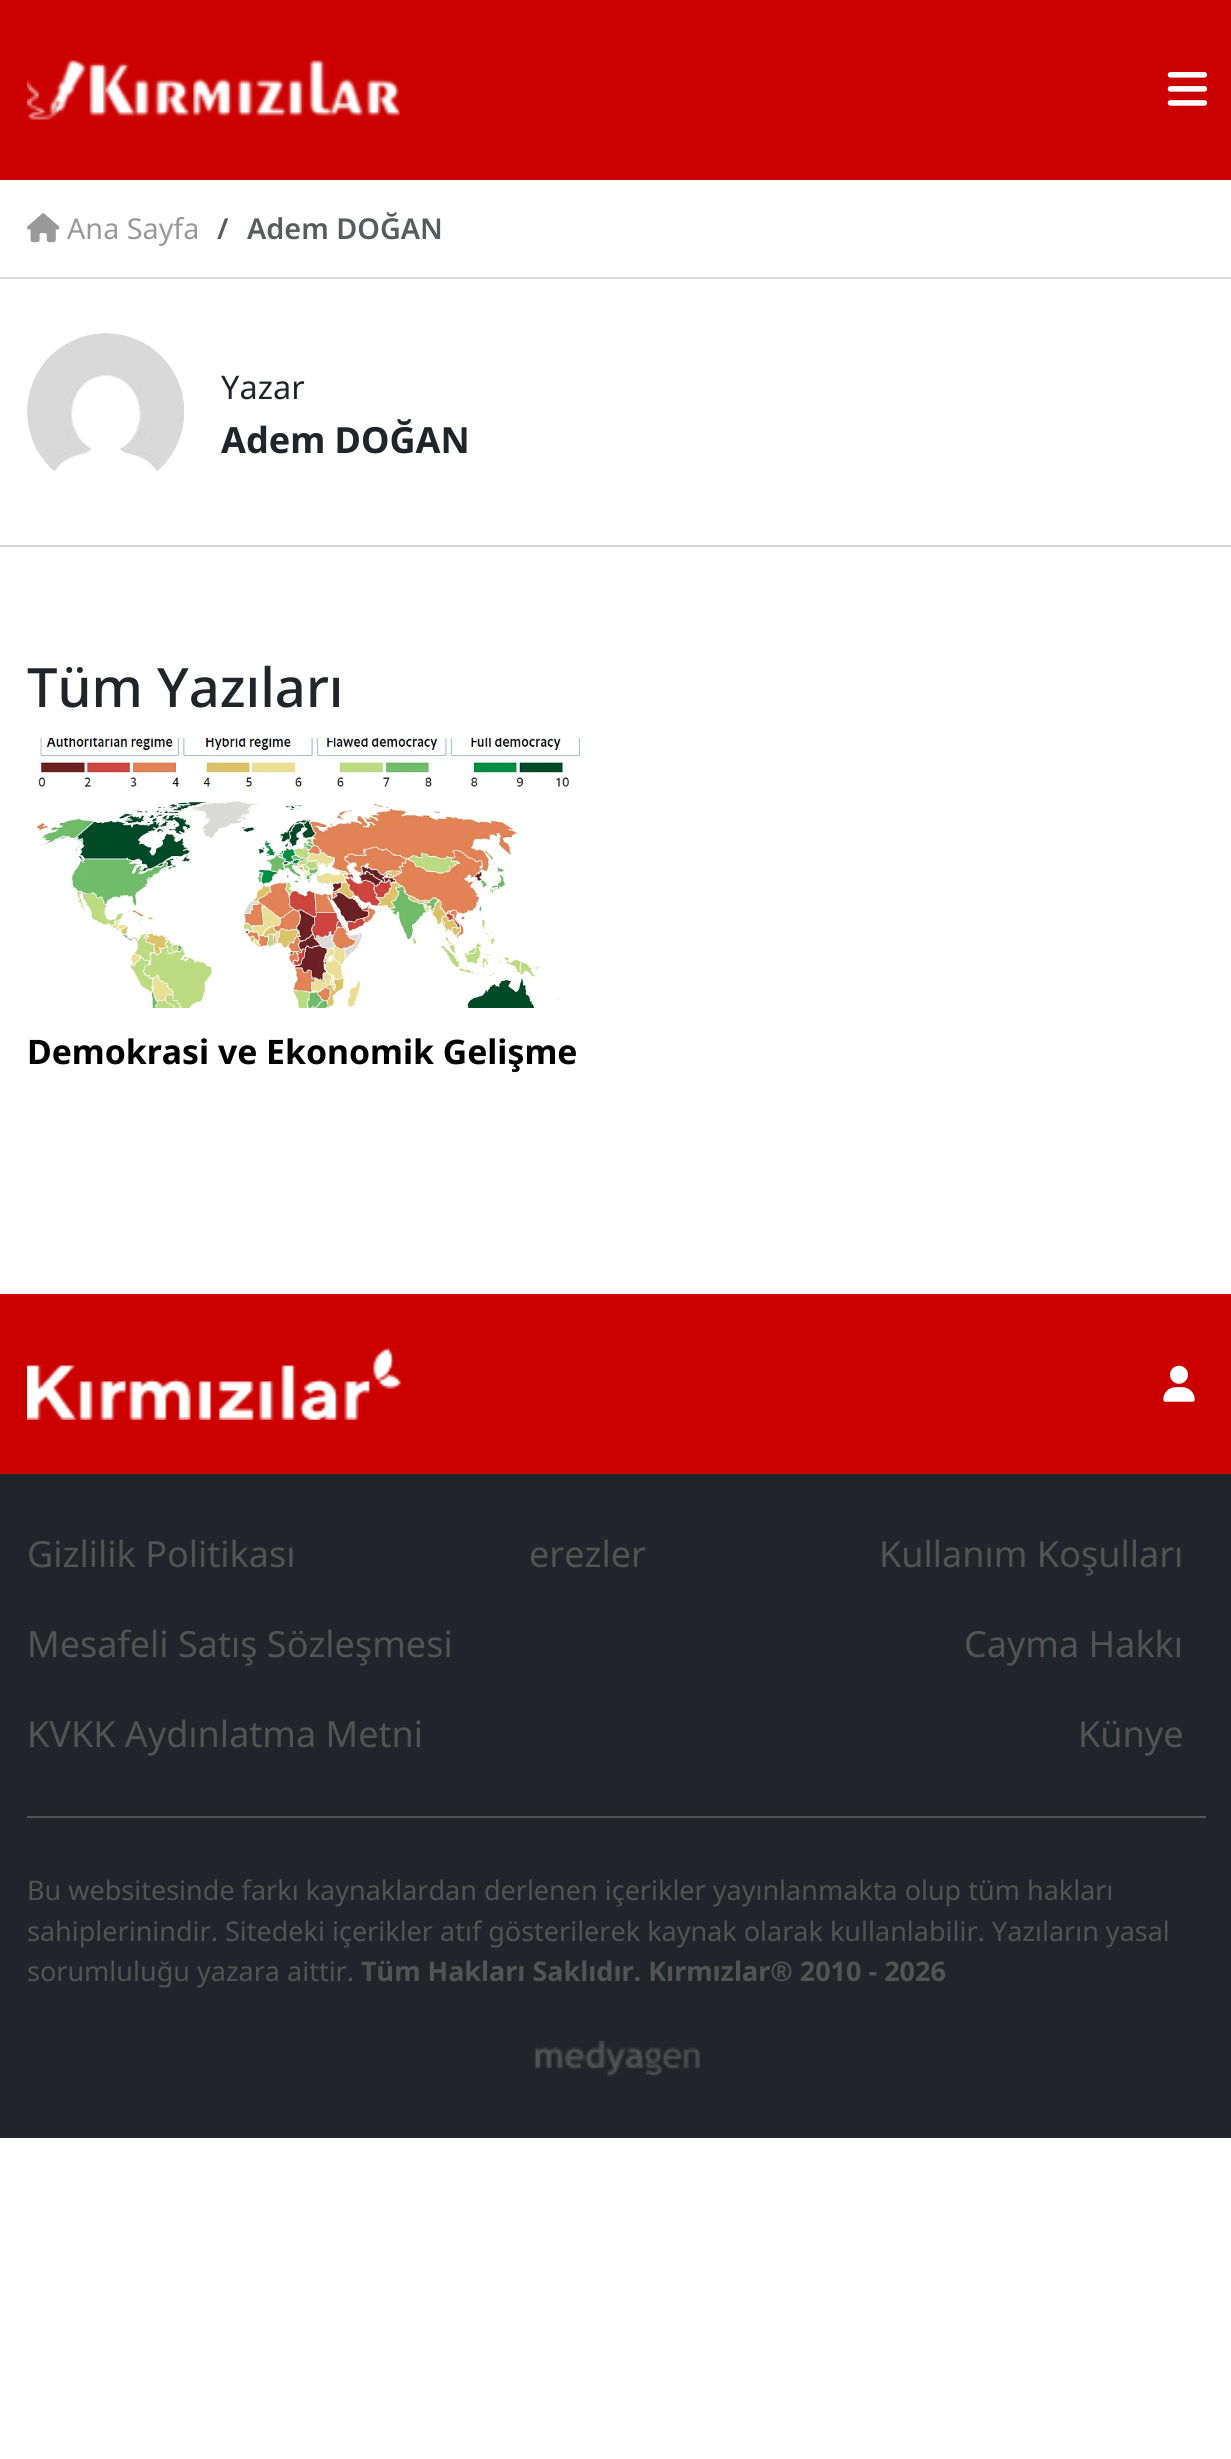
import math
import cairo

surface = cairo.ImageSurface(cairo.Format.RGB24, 1231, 2459)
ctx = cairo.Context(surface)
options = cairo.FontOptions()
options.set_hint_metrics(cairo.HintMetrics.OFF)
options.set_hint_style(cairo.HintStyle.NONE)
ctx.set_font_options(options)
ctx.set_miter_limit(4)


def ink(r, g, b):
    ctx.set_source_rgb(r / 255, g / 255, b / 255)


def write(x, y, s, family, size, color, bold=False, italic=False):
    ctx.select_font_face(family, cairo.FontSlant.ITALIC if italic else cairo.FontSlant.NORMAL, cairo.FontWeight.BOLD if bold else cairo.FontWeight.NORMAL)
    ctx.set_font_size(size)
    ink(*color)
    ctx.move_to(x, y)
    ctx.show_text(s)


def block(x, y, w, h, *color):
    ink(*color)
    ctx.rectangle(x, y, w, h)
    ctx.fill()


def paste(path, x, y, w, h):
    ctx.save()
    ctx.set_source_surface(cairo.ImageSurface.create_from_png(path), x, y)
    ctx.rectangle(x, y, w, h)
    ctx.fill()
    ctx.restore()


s1 = dict(family="Noto Sans", size=28.75, color=(153, 153, 153))
s2 = dict(family="Noto Sans SemiBold", size=28.75, color=(89, 92, 95))
s3 = dict(family="Noto Sans", size=32.5, color=(33, 37, 41))
s4 = dict(family="Noto Sans", size=36, color=(33, 37, 41), bold=True)
s5 = dict(family="Noto Sans Medium", size=54.25, color=(33, 37, 41))
s6 = dict(family="Noto Sans", size=33.75, color=(0, 0, 0), bold=True)
s7 = dict(family="Noto Sans", size=36, color=(83, 83, 83))
s8 = dict(family="Noto Sans", size=27, color=(83, 83, 83))
s9 = dict(family="Noto Sans", size=27, color=(83, 83, 83), bold=True)

ink(255, 255, 255)
ctx.paint()
block(0, 0, 1231, 180, 204, 0, 0)
paste("pic1.png", 27, 60, 373, 60)
paste("pic2.png", 1167, 72, 41, 34)
block(0, 277, 1231, 2, 217, 217, 217)
paste("pic3.png", 27, 213, 33, 30)
write(67, 239, "Ana Sayfa", **s1)
write(217, 239, "/", **s2)
write(247, 239, "Adem DOĞAN", **s2)
block(0, 545, 1231, 2, 211, 211, 211)
paste("pic4.png", 27, 333, 157, 139)
write(221, 399, "Yazar", **s3)
write(221, 453, "Adem DOĞAN", **s4)
write(27, 707, "Tüm Yazıları", **s5)
paste("pic5.png", 36, 738, 545, 270)
write(27, 1064, "Demokrasi ve Ekonomik Gelişme", **s6)
block(0, 1294, 1231, 180, 204, 0, 0)
paste("pic6.png", 27, 1347, 374, 73)
paste("pic7.png", 1163, 1365, 32, 37)
block(0, 1474, 1231, 664, 33, 37, 41)
write(27, 1567, "Gizlilik Politikası", **s7)
write(529, 1567, "erezler", **s7)
write(879, 1567, "Kullanım Koşulları", **s7)
write(27, 1657, "Mesafeli Satış Sözleşmesi", **s7)
write(964, 1657, "Cayma Hakkı", **s7)
write(27, 1747, "KVKK Aydınlatma Metni", **s7)
write(1078, 1747, "Künye", **s7)
block(27, 1816, 1179, 2, 83, 83, 83)
write(27, 1900, "Bu websitesinde farkı kaynaklardan derlenen içerikler yayınlanmakta olup tüm hakları", **s8)
write(27, 1941, "sahiplerinindir. Sitedeki içerikler atıf gösterilerek kaynak olarak kullanlabilir. Yazıların yasal", **s8)
write(27, 1981, "sorumluluğu yazara aittir.", **s8)
write(361, 1981, "Tüm Hakları Saklıdır. Kırmızlar® 2010 - 2026", **s9)
paste("pic8.png", 535, 2040, 165, 37)
surface.write_to_png("screenshot.png")
